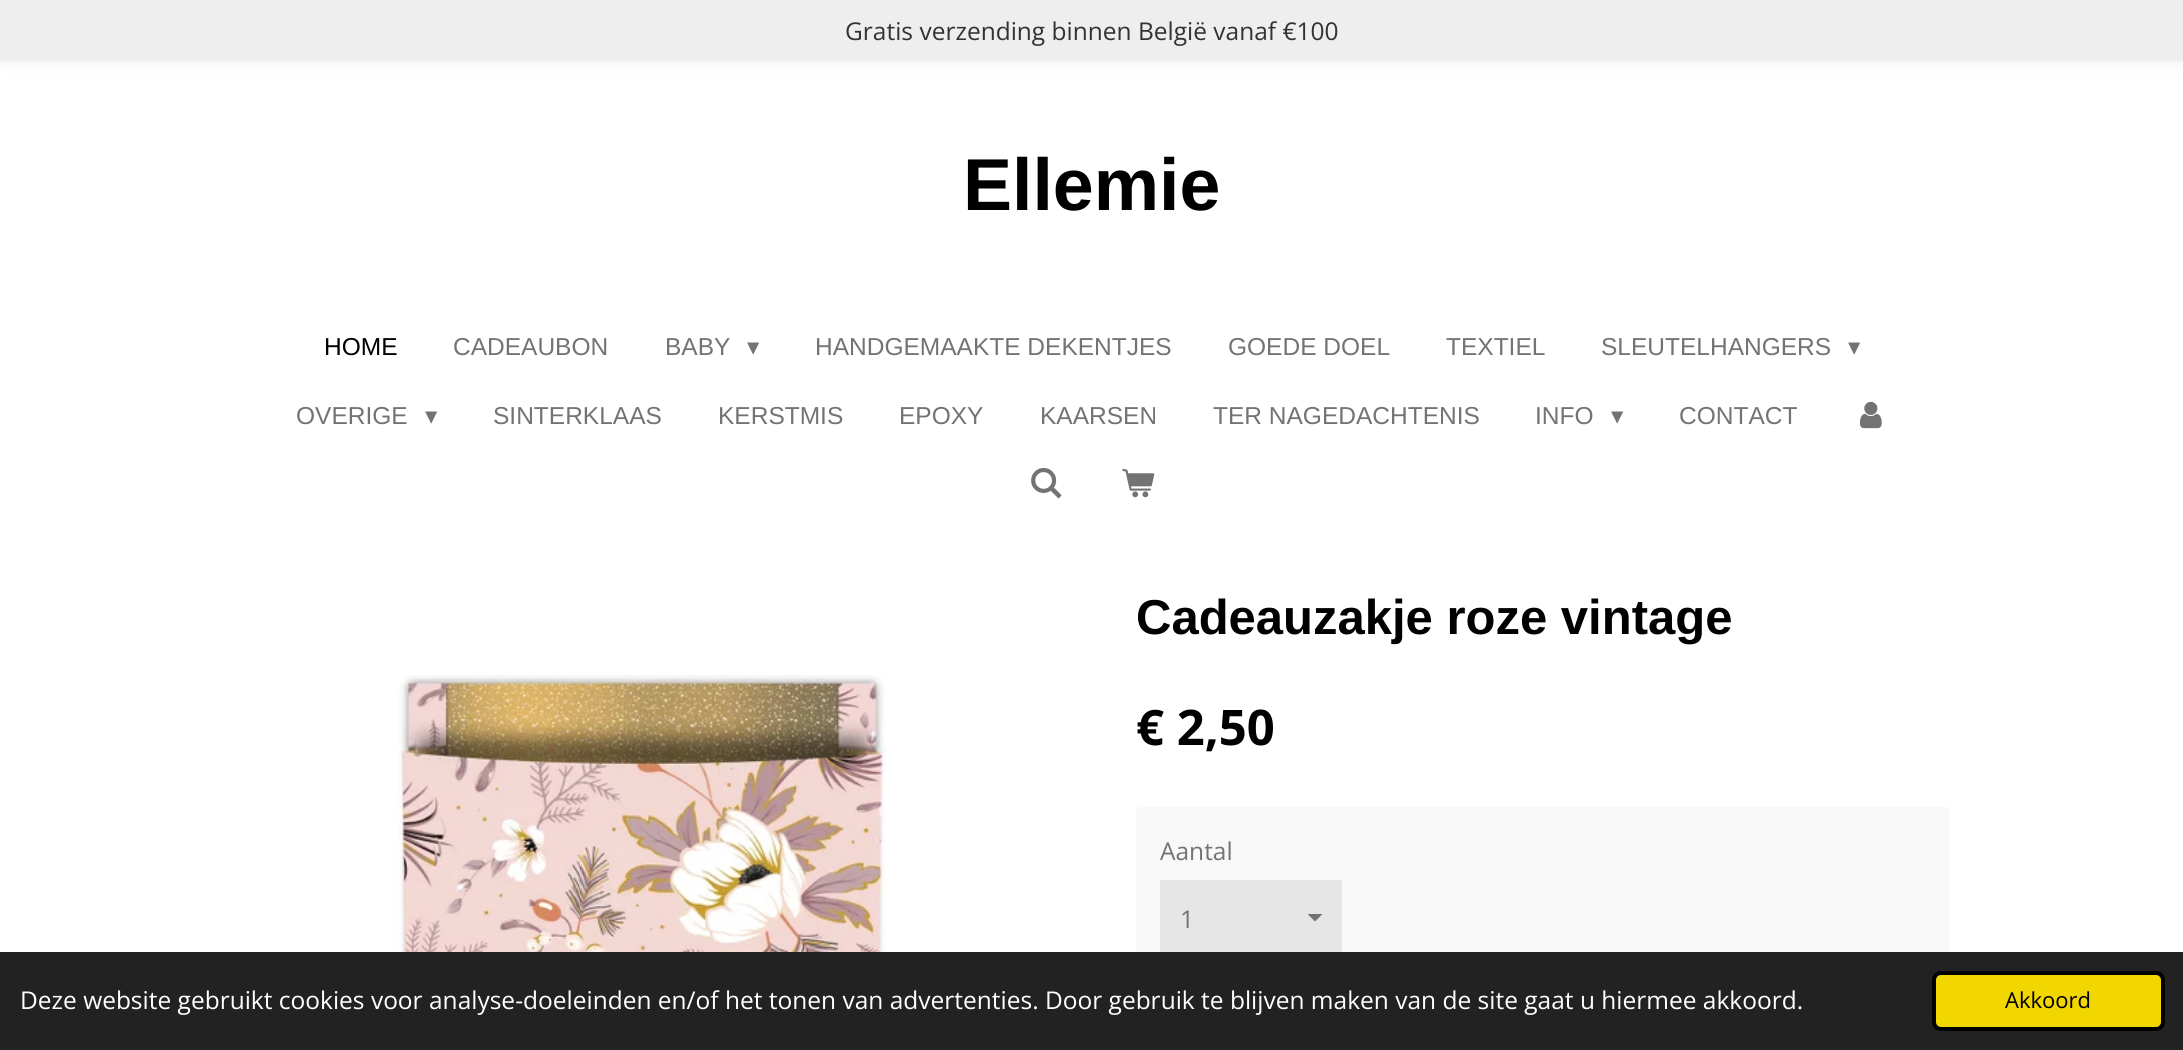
import math
import cairo

surface = cairo.ImageSurface(cairo.Format.RGB24, 2183, 1050)
ctx = cairo.Context(surface)
options = cairo.FontOptions()
options.set_hint_metrics(cairo.HintMetrics.OFF)
options.set_hint_style(cairo.HintStyle.NONE)
ctx.set_font_options(options)
ctx.set_miter_limit(4)


def ink(r, g, b):
    ctx.set_source_rgb(r / 255, g / 255, b / 255)


def write(x, y, s, family, size, color, bold=False, italic=False):
    ctx.select_font_face(family, cairo.FontSlant.ITALIC if italic else cairo.FontSlant.NORMAL, cairo.FontWeight.BOLD if bold else cairo.FontWeight.NORMAL)
    ctx.set_font_size(size)
    ink(*color)
    ctx.move_to(x, y)
    ctx.show_text(s)


def block(x, y, w, h, *color):
    ink(*color)
    ctx.rectangle(x, y, w, h)
    ctx.fill()


def round_path(x, y, w, h, r):
    ctx.new_sub_path()
    for i, (u, v) in enumerate([(x + w - r, y + h - r), (x + r, y + h - r), (x + r, y + r), (x + w - r, y + r)]):
        ctx.arc(u, v, r, i * math.pi / 2, (i + 1) * math.pi / 2)
    ctx.close_path()


def blur_box(x, y, w, h, r, blur, alpha):
    ctx.push_group_with_content(cairo.Content.ALPHA)
    ctx.set_operator(cairo.Operator.SOURCE)
    for i in range(15, -16, -2):
        e = blur * i / 6
        if min(w, h) + 2 * e > 0:
            ctx.set_source_rgba(0, 0, 0, alpha * math.erfc((i - 1) / 8.5) / 2)
            round_path(x - e, y - e, w + 2 * e, h + 2 * e, max(0, min(r + e + blur * .6, min(w, h) / 2 + e)))
            ctx.fill()
    ctx.mask(ctx.pop_group())


def paste(path, x, y, w, h):
    ctx.save()
    ctx.set_source_surface(cairo.ImageSurface.create_from_png(path), x, y)
    ctx.rectangle(x, y, w, h)
    ctx.fill()
    ctx.restore()


s1 = dict(family="Open Sans", size=24.5, color=(51, 51, 51))
s2 = dict(family="Liberation Sans", size=73.5, color=(0, 0, 0), bold=True)
s3 = dict(family="Liberation Sans", size=24.5, color=(0, 0, 0))
s4 = dict(family="Liberation Sans", size=24.5, color=(115, 115, 115))
s5 = dict(family="DejaVu Sans", size=24.5, color=(115, 115, 115))
s6 = dict(family="Liberation Sans", size=49, color=(0, 0, 0), bold=True)
s7 = dict(family="Open Sans", size=49, color=(0, 0, 0), bold=True)
s8 = dict(family="Open Sans", size=24.5, color=(115, 115, 115))
s9 = dict(family="Open Sans", size=24.5, color=(255, 255, 255))
s10 = dict(family="Open Sans", size=22, color=(0, 0, 0))

ink(255, 255, 255)
ctx.paint()
ink(0, 0, 0)
blur_box(0, -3, 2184, 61, 0, 9, 0.1)
block(0, 0, 2183, 61, 238, 238, 238)
write(845, 40, "Gratis verzending binnen België vanaf €100", **s1)
write(963, 210, "Ellemie", **s2)
write(324, 355, "HOME", **s3)
write(453, 355, "CADEAUBON", **s4)
write(665, 355, "BABY", **s4)
write(747, 355, "▾", **s5)
write(815, 355, "HANDGEMAAKTE DEKENTJES", **s4)
write(1228, 355, "GOEDE DOEL", **s4)
write(1446, 355, "TEXTIEL", **s4)
write(1601, 355, "SLEUTELHANGERS", **s4)
write(1848, 355, "▾", **s5)
write(296, 424, "OVERIGE", **s4)
write(425, 424, "▾", **s5)
write(493, 424, "SINTERKLAAS", **s4)
write(718, 424, "KERSTMIS", **s4)
write(899, 424, "EPOXY", **s4)
write(1040, 424, "KAARSEN", **s4)
write(1213, 424, "TER NAGEDACHTENIS", **s4)
write(1535, 424, "INFO", **s4)
write(1611, 424, "▾", **s5)
write(1679, 424, "CONTACT", **s4)
paste("pic1.png", 1859, 401, 23, 28)
paste("pic2.png", 1031, 467, 31, 32)
paste("pic3.png", 1122, 468, 33, 30)
write(1136, 634, "Cadeauzakje roze vintage", **s6)
paste("pic4.png", 398, 675, 488, 277)
write(1136, 745, "€ 2,50", **s7)
ink(248, 248, 248)
round_path(1136, 807, 814, 173, 5)
ctx.fill()
write(1160, 860, "Aantal", **s8)
block(1160, 880, 182, 72, 230, 230, 230)
ink(115, 115, 115)
ctx.new_path()
ctx.move_to(1315, 921.5)
ctx.line_to(1307.5, 914)
ctx.line_to(1322.5, 914)
ctx.close_path()
ctx.fill()
write(1180, 928, "1", **s8)
block(0, 952, 2183, 98, 34, 34, 34)
write(20, 1009, "Deze website gebruikt cookies voor analyse-doeleinden en/of het tonen van advertenties. Door gebruik te blijven maken van de site gaat u hiermee akkoord.", **s9)
ink(241, 214, 0)
round_path(1934, 973, 229, 56, 7)
ctx.fill_preserve()
ink(0, 0, 0)
ctx.set_line_width(4)
ctx.stroke()
write(2005, 1008, "Akkoord", **s10)
surface.write_to_png("screenshot.png")
